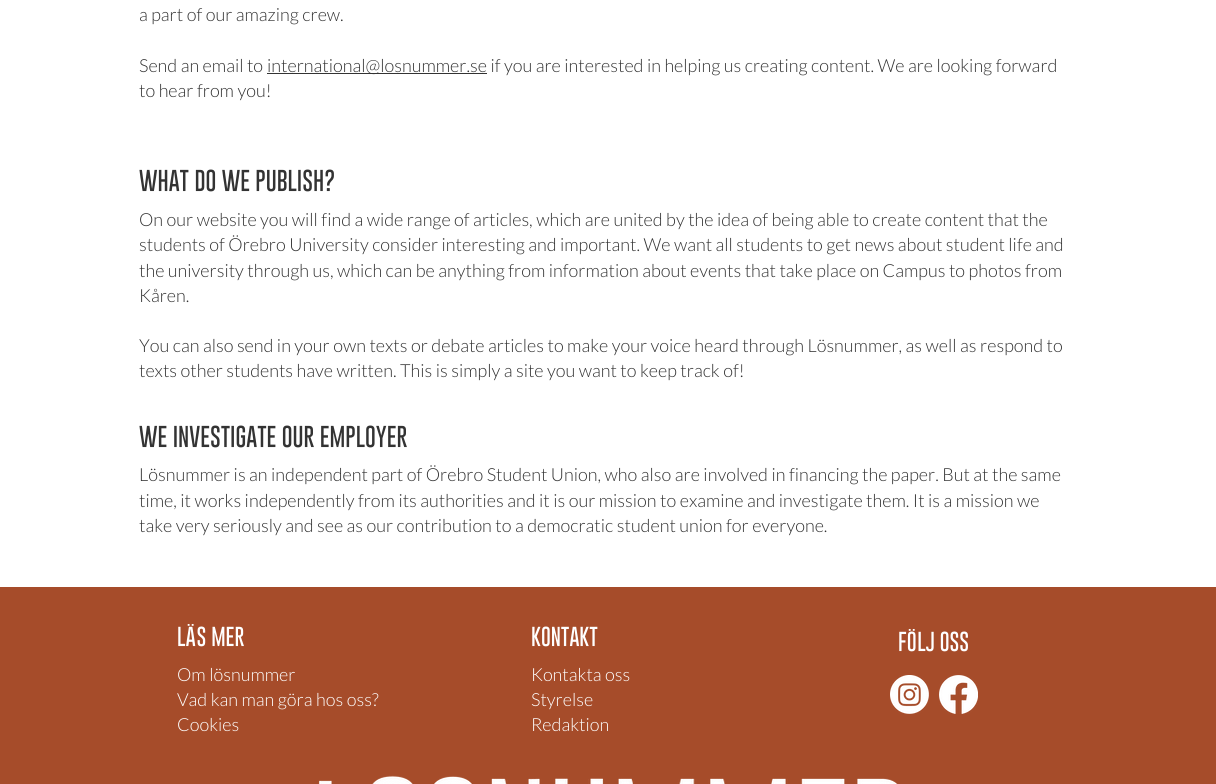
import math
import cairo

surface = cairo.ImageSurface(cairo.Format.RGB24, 1216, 784)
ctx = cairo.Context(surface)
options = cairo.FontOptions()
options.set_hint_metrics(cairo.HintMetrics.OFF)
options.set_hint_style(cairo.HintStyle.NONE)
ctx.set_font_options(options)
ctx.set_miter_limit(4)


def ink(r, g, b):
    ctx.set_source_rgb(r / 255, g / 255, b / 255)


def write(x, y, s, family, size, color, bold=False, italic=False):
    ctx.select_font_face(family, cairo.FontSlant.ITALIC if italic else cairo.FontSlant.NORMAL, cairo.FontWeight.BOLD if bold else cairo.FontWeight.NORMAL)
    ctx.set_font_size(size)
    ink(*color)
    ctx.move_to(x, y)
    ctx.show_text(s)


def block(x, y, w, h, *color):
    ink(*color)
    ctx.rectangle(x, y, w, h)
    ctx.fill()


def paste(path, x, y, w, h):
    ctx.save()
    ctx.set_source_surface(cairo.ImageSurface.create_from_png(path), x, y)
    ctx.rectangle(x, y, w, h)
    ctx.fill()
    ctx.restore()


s1 = dict(family="Lato Light", size=18, color=(51, 51, 51))
s2 = dict(family="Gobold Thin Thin", size=22, color=(51, 51, 51))
s3 = dict(family="Gobold Thin Thin", size=20, color=(255, 255, 255))
s4 = dict(family="Lato Light", size=18, color=(255, 255, 255))

ink(255, 255, 255)
ctx.paint()
write(139, 21, "a part of our amazing crew.", **s1)
write(139, 72, "Send an email to", **s1)
block(267, 73, 220, 1, 51, 51, 51)
write(267, 72, "international@losnummer.se if you are interested in helping us creating content. We are looking forward", **s1)
write(139, 97, "to hear from you!", **s1)
write(139, 191, "WHAT DO WE PUBLISH?", **s2)
write(139, 226, "On our website you will find a wide range of articles, which are united by the idea of being able to create content that the", **s1)
write(139, 251, "students of Örebro University consider interesting and important. We want all students to get news about student life and", **s1)
write(139, 277, "the university through us, which can be anything from information about events that take place on Campus to photos from", **s1)
write(139, 302, "Kåren.", **s1)
write(139, 352, "You can also send in your own texts or debate articles to make your voice heard through Lösnummer, as well as respond to", **s1)
write(139, 377, "texts other students have written. This is simply a site you want to keep track of!", **s1)
write(139, 447, "WE INVESTIGATE OUR EMPLOYER", **s2)
write(139, 481, "Lösnummer is an independent part of Örebro Student Union, who also are involved in financing the paper. But at the same", **s1)
write(139, 507, "time, it works independently from its authorities and it is our mission to examine and investigate them. It is a mission we", **s1)
write(139, 532, "take very seriously and see as our contribution to a democratic student union for everyone.", **s1)
block(0, 587, 1216, 197, 166, 76, 42)
write(177, 646, "LÄS MER", **s3)
write(177, 681, "Om lösnummer", **s4)
write(177, 706, "Vad kan man göra hos oss?", **s4)
write(177, 731, "Cookies", **s4)
write(531, 646, "KONTAKT", **s3)
write(531, 681, "Kontakta oss", **s4)
write(531, 706, "Styrelse", **s4)
write(531, 731, "Redaktion", **s4)
write(898, 651, "FÖLJ OSS", **s3)
paste("pic1.png", 890, 675, 39, 39)
paste("pic2.png", 939, 675, 39, 39)
paste("pic3.png", 318, 775, 580, 9)
surface.write_to_png("screenshot.png")
